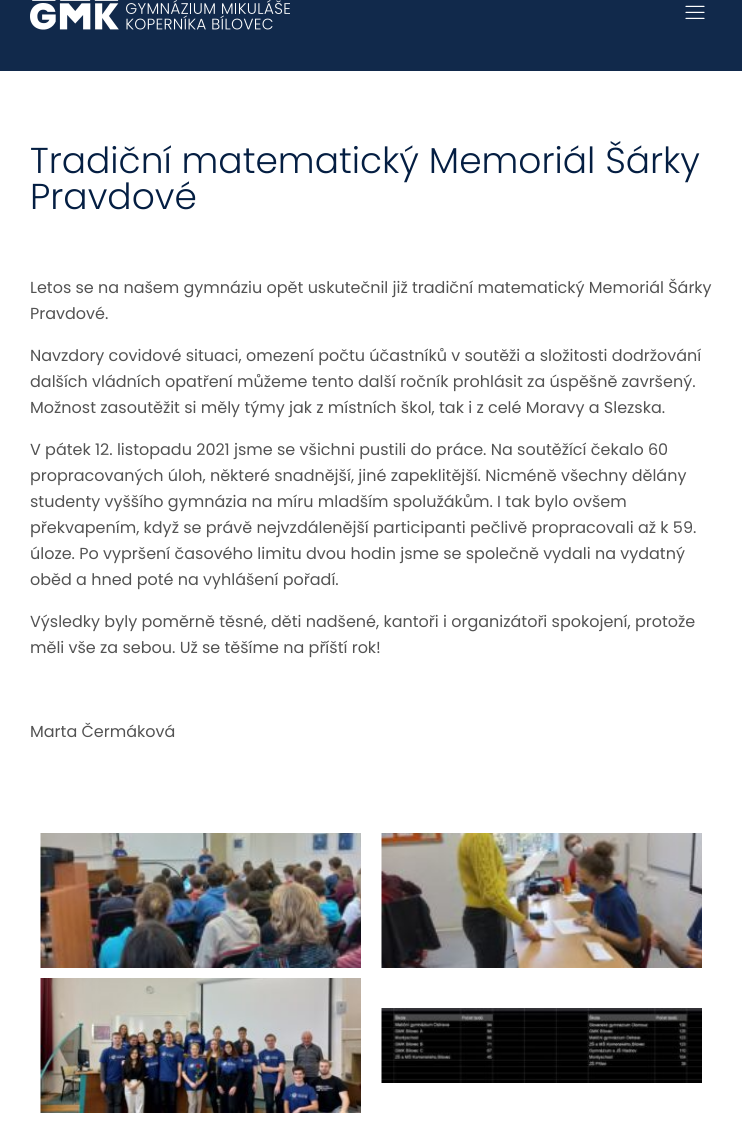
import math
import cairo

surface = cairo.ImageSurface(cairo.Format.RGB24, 742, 1133)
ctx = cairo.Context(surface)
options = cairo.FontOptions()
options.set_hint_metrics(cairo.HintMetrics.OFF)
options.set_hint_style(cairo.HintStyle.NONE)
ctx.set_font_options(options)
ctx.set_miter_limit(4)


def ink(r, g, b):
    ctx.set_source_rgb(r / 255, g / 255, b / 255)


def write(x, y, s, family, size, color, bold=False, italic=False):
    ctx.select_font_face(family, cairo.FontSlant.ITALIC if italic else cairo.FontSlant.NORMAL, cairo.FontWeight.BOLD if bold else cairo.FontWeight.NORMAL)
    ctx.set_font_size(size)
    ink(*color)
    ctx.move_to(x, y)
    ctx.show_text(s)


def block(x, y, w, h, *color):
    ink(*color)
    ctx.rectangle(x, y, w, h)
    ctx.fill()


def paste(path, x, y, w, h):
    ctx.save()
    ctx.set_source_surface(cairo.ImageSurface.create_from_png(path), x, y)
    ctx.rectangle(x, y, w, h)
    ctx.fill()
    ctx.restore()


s1 = dict(family="Poppins Light", size=36, color=(4, 30, 66))
s2 = dict(family="Poppins", size=16, color=(83, 83, 83))

ink(255, 255, 255)
ctx.paint()
block(0, 0, 742, 71, 17, 41, 75)
paste("pic1.png", 30, 0, 260, 30)
paste("pic2.png", 685, 5, 20, 14)
write(30, 173, "Tradiční matematický Memoriál Šárky", **s1)
write(30, 209, "Pravdové", **s1)
write(30, 293, "Letos se na našem gymnáziu opět uskutečnil již tradiční matematický Memoriál Šárky", **s2)
write(30, 319, "Pravdové.", **s2)
write(30, 361, "Navzdory covidové situaci, omezení počtu účastníků v soutěži a složitosti dodržování", **s2)
write(30, 387, "dalších vládních opatření můžeme tento další ročník prohlásit za úspěšně završený.", **s2)
write(30, 413, "Možnost zasoutěžit si měly týmy jak z místních škol, tak i z celé Moravy a Slezska.", **s2)
write(30, 455, "V pátek 12. listopadu 2021 jsme se všichni pustili do práce. Na soutěžící čekalo 60", **s2)
write(30, 481, "propracovaných úloh, některé snadnější, jiné zapeklitější. Nicméně všechny dělány", **s2)
write(30, 507, "studenty vyššího gymnázia na míru mladším spolužákům. I tak bylo ovšem", **s2)
write(30, 533, "překvapením, když se právě nejvzdálenější participanti pečlivě propracovali až k 59.", **s2)
write(30, 559, "úloze. Po vypršení časového limitu dvou hodin jsme se společně vydali na vydatný", **s2)
write(30, 585, "oběd a hned poté na vyhlášení pořadí.", **s2)
write(30, 627, "Výsledky byly poměrně těsné, děti nadšené, kantoři i organizátoři spokojení, protože", **s2)
write(30, 653, "měli vše za sebou. Už se těšíme na příští rok!", **s2)
write(30, 737, "Marta Čermáková", **s2)
paste("pic3.png", 40, 833, 321, 135)
paste("pic4.png", 381, 833, 321, 135)
paste("pic5.png", 40, 978, 321, 135)
paste("pic6.png", 381, 1008, 321, 75)
surface.write_to_png("screenshot.png")
